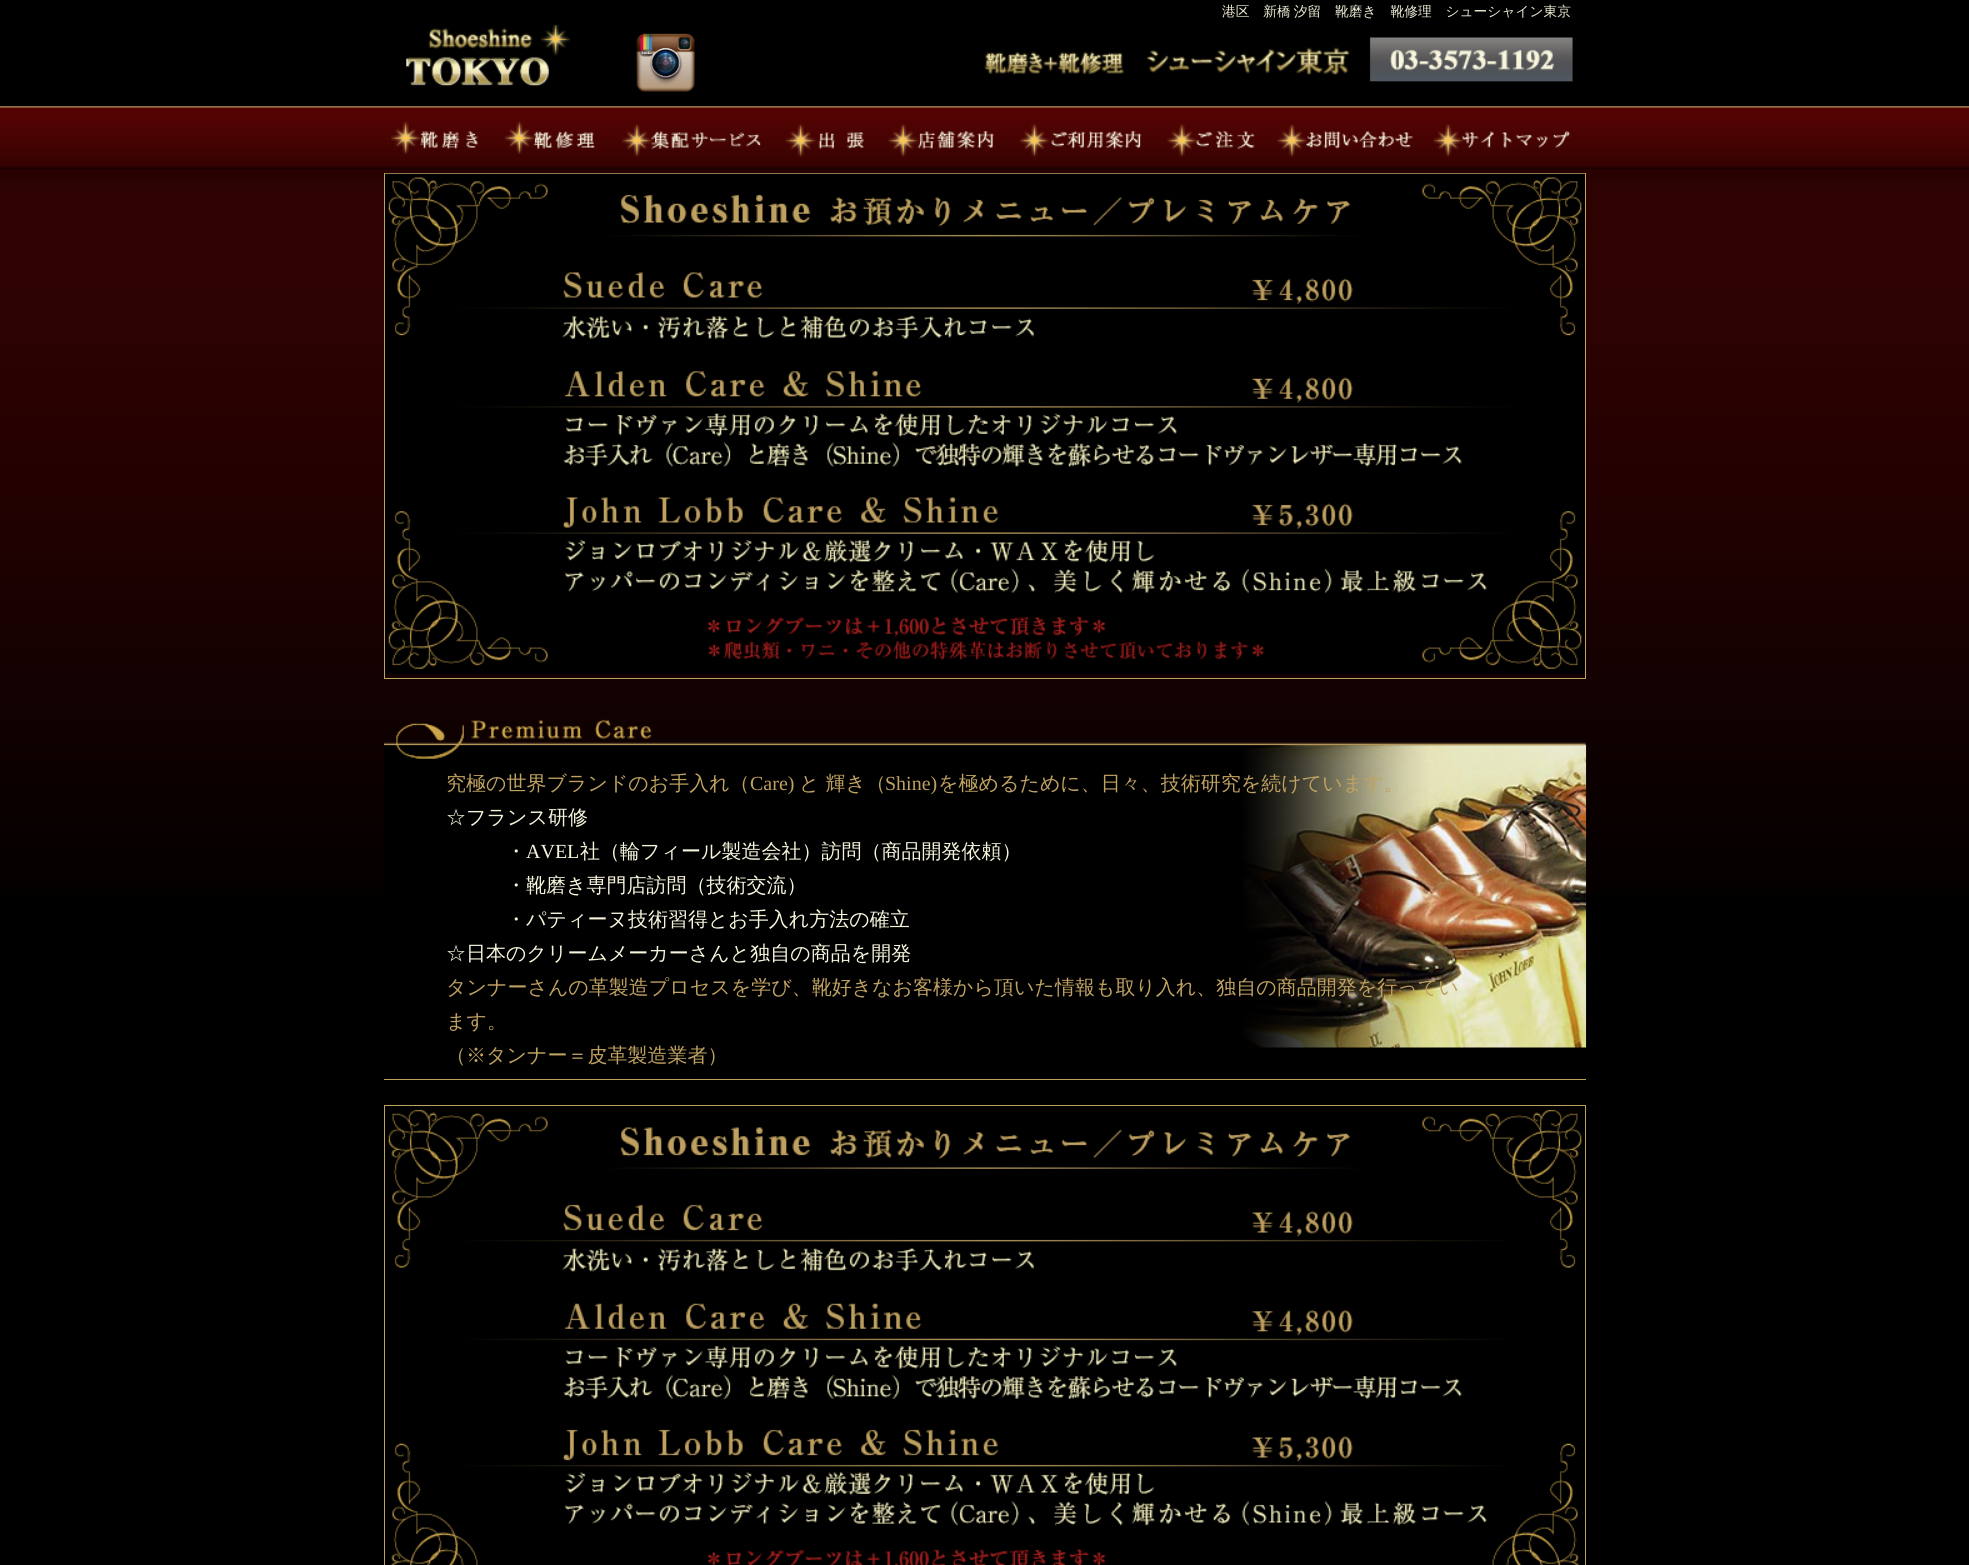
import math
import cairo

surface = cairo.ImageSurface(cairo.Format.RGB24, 1969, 1565)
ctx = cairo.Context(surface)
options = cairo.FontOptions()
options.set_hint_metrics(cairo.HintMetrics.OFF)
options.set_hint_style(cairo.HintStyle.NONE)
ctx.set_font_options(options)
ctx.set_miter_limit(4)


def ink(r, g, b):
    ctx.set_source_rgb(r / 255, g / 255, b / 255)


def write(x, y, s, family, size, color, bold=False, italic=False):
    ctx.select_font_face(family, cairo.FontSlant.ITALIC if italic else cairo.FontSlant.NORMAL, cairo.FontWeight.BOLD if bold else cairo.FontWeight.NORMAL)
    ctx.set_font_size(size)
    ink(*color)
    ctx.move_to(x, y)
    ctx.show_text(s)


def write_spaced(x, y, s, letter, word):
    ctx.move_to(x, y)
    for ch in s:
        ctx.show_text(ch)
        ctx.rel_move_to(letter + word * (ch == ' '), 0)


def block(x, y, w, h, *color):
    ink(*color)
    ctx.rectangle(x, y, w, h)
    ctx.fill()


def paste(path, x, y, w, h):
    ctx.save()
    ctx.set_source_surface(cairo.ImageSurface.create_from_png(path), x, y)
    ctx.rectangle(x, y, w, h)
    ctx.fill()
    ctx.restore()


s1 = dict(family="WenQuanYi Zen Hei Medium", size=20, color=(191, 161, 97))
s2 = dict(family="Liberation Serif", size=20, color=(191, 161, 97))
s3 = dict(family="WenQuanYi Zen Hei Medium", size=20, color=(248, 245, 221))
s4 = dict(family="Liberation Serif", size=20, color=(248, 245, 221))

ink(0, 0, 0)
ctx.paint()
paste("pic1.png", 0, 106, 1969, 789)
ctx.select_font_face("WenQuanYi Zen Hei Medium")
ctx.set_font_size(13.75)
ink(237, 234, 212)
write_spaced(1222, 16, "港区　新橋 汐留　靴磨き　靴修理　シューシャイン東京", 0, -1)
paste("pic2.png", 406, 25, 165, 62)
paste("pic3.png", 636, 33, 59, 59)
paste("pic4.png", 984, 47, 366, 28)
paste("pic5.png", 1369, 37, 204, 45)
paste("pic6.png", 391, 121, 87, 33)
paste("pic7.png", 504, 121, 91, 33)
paste("pic8.png", 622, 124, 139, 33)
paste("pic9.png", 785, 124, 79, 33)
paste("pic10.png", 888, 124, 106, 33)
paste("pic11.png", 1019, 123, 123, 34)
paste("pic12.png", 1167, 124, 88, 33)
paste("pic13.png", 1277, 124, 136, 33)
paste("pic14.png", 1433, 124, 138, 33)
ctx.rectangle(384.5, 173.5, 1201, 505)
ink(191, 161, 97)
ctx.set_line_width(1)
ctx.stroke()
paste("pic15.png", 385, 173, 1200, 501)
paste("pic16.png", 384, 744, 1203, 304)
block(384, 1079, 1202, 1, 191, 161, 97)
paste("pic17.png", 383, 719, 1204, 40)
write(446, 790, "究極の世界ブランドのお手入れ（", **s1)
write(750, 790, "Care)", **s2)
write(799, 790, "と 輝き（", **s1)
write(885, 790, "Shine)", **s2)
write(938, 790, "を極めるために、日々、技術研究を続けています。", **s1)
write(446, 824, "☆フランス研修", **s3)
write(506, 858, "・", **s3)
write(526, 858, "AVEL", **s4)
write(580, 858, "社（輪フィール製造会社）訪問（商品開発依頼）", **s3)
write(506, 892, "・靴磨き専門店訪問（技術交流）", **s3)
write(506, 926, "・パティーヌ技術習得とお手入れ方法の確立", **s3)
write(446, 960, "☆日本のクリームメーカーさんと独自の商品を開発", **s3)
write(446, 994, "タンナーさんの革製造プロセスを学び、靴好きなお客様から頂いた情報も取り入れ、独自の商品開発を行ってい", **s1)
write(446, 1028, "ます。", **s1)
write(446, 1062, "（※タンナー＝皮革製造業者）", **s1)
ctx.rectangle(384.5, 1105.5, 1201, 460)
ctx.stroke()
paste("pic18.png", 388, 1109, 1194, 456)
surface.write_to_png("screenshot.png")
